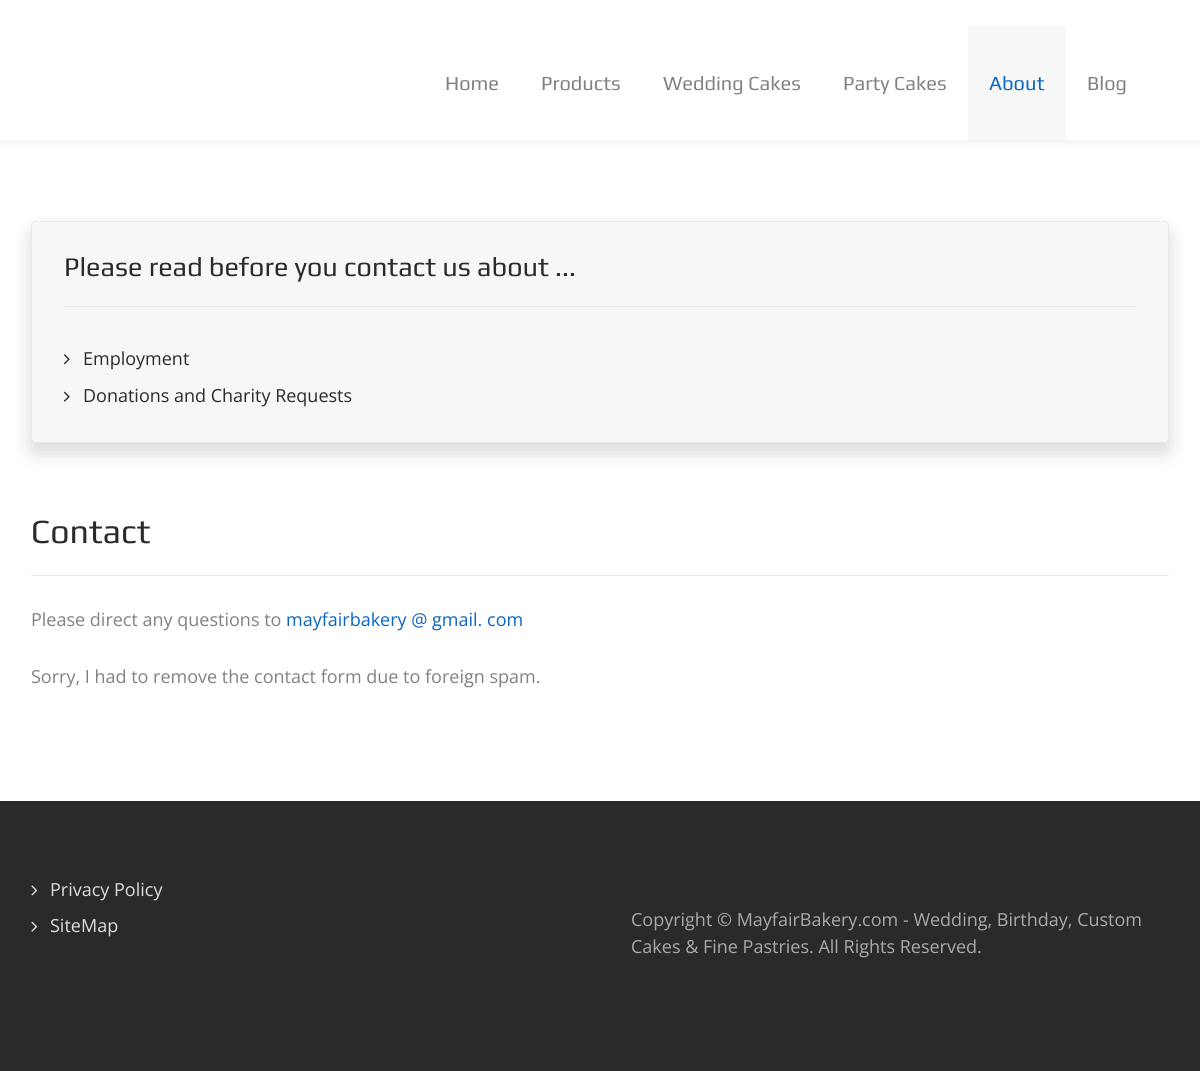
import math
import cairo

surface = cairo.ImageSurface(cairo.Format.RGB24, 1200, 1071)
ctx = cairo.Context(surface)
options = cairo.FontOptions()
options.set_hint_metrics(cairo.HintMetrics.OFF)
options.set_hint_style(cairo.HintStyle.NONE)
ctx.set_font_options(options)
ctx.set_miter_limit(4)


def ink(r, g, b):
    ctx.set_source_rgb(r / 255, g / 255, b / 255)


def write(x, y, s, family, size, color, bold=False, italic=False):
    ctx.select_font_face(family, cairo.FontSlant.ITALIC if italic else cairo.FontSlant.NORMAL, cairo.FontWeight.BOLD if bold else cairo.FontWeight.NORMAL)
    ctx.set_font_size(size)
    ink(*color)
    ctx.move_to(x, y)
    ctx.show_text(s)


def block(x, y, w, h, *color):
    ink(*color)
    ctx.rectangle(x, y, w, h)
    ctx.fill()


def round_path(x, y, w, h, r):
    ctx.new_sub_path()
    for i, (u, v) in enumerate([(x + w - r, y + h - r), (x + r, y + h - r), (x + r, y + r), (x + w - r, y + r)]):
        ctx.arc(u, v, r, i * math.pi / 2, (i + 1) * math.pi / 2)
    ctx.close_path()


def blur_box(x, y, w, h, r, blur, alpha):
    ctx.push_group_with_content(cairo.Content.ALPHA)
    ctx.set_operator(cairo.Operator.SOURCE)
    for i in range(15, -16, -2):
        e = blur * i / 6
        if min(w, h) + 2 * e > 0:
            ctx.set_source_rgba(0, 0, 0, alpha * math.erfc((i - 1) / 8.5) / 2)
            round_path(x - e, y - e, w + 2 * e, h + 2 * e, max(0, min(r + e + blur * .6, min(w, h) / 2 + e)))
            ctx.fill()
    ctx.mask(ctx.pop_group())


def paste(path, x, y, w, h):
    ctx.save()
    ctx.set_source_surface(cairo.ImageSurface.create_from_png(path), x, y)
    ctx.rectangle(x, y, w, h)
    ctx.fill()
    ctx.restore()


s1 = dict(family="Play", size=20, color=(129, 129, 129))
s2 = dict(family="Play", size=20, color=(10, 103, 196))
s3 = dict(family="Play", size=27, color=(42, 42, 42))
s4 = dict(family="Open Sans", size=18, color=(42, 42, 42))
s5 = dict(family="Play", size=34, color=(42, 42, 42))
s6 = dict(family="Open Sans", size=18, color=(129, 129, 129))
s7 = dict(family="Open Sans", size=18, color=(10, 103, 196))
s8 = dict(family="Open Sans", size=18, color=(221, 221, 221))
s9 = dict(family="Open Sans", size=18, color=(170, 170, 170))

ink(42, 42, 42)
ctx.paint()
block(0, 140, 1200, 661, 255, 255, 255)
ink(0, 0, 0)
blur_box(0, 4, 1200, 140, 0, 2, 0.05)
block(0, 0, 1200, 140, 255, 255, 255)
write(445, 90, "Home", **s1)
write(541, 90, "Products", **s1)
write(663, 90, "Wedding Cakes", **s1)
write(843, 90, "Party Cakes", **s1)
block(968, 26, 98, 114, 247, 247, 247)
write(989, 90, "About", **s2)
write(1087, 90, "Blog", **s1)
ink(0, 0, 0)
blur_box(31, 231, 1138, 222, 5, 10, 0.15)
ink(247, 247, 247)
round_path(31.5, 221.5, 1137, 221, 4.5)
ctx.fill_preserve()
ink(233, 233, 233)
ctx.set_line_width(1)
ctx.stroke()
block(64, 306, 1072, 1, 233, 233, 233)
write(64, 276, "Please read before you contact us about ...", **s3)
paste("pic1.png", 63, 354, 7, 11)
write(83, 365, "Employment", **s4)
paste("pic2.png", 63, 391, 7, 11)
write(83, 402, "Donations and Charity Requests", **s4)
block(31, 575, 1138, 1, 233, 233, 233)
write(31, 543, "Contact", **s5)
write(31, 626, "Please direct any questions to", **s6)
write(286, 626, "mayfairbakery @ gmail. com", **s7)
write(31, 683, "Sorry, I had to remove the contact form due to foreign spam.", **s6)
paste("pic3.png", 31, 885, 7, 11)
write(50, 896, "Privacy Policy", **s8)
paste("pic4.png", 31, 921, 7, 11)
write(50, 932, "SiteMap", **s8)
write(631, 926, "Copyright © MayfairBakery.com - Wedding, Birthday, Custom", **s9)
write(631, 953, "Cakes & Fine Pastries. All Rights Reserved.", **s9)
surface.write_to_png("screenshot.png")
